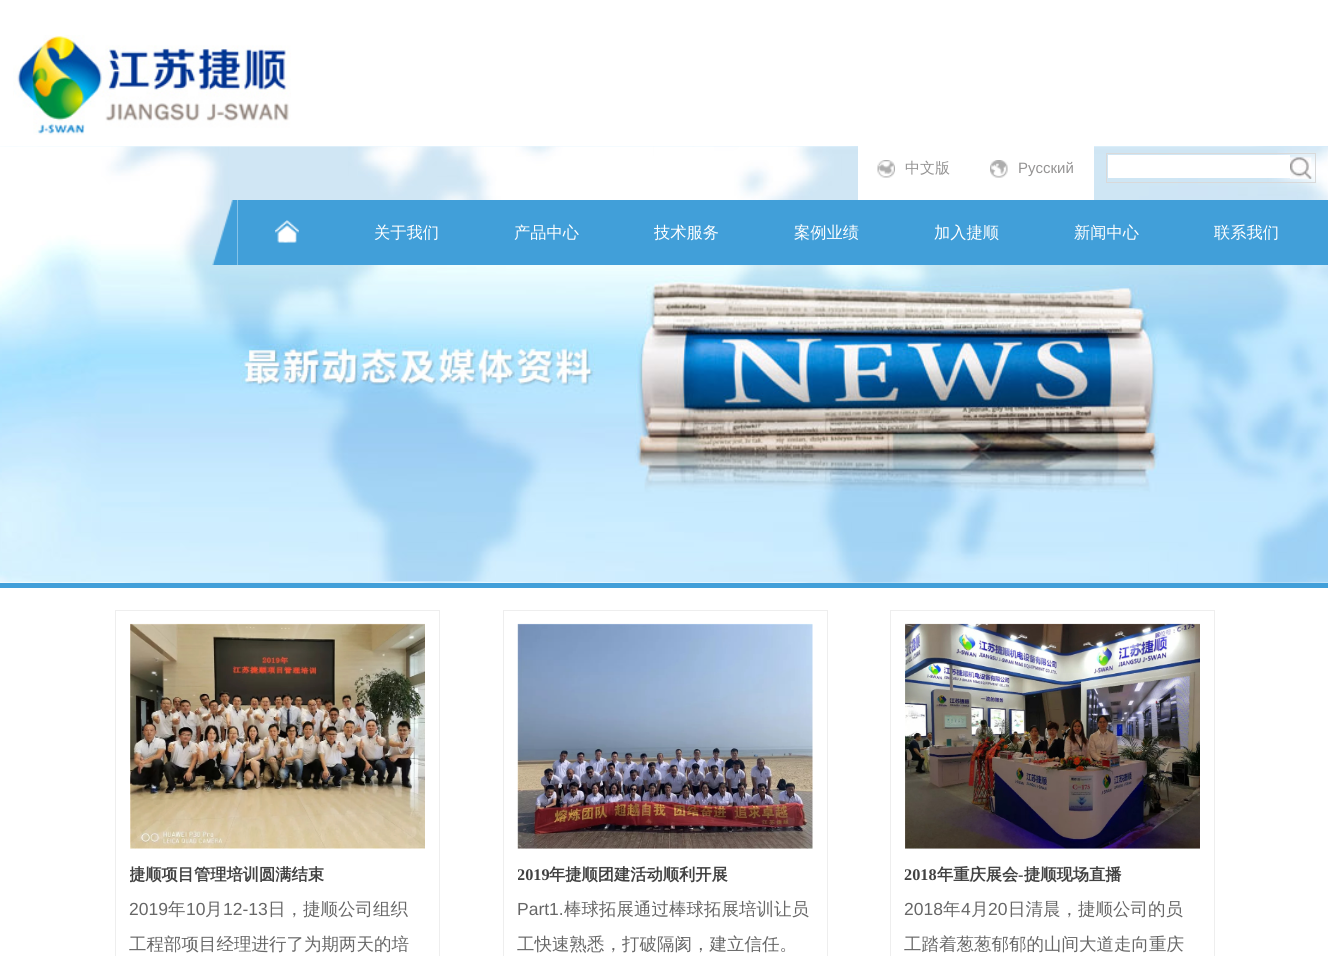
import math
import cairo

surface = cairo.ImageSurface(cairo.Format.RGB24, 1328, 956)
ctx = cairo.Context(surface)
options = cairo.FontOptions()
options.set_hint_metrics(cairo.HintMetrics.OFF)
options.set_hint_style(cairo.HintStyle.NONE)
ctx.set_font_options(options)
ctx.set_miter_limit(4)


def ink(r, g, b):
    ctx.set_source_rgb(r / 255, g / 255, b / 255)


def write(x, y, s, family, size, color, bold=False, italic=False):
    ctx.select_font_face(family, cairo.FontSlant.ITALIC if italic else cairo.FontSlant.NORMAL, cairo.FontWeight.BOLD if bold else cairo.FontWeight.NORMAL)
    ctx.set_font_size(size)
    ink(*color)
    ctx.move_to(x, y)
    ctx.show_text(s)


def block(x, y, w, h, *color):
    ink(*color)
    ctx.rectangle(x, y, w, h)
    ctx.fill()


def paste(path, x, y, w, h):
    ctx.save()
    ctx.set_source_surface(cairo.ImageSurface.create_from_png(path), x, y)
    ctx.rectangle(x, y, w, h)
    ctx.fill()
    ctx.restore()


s1 = dict(family="WenQuanYi Zen Hei Medium", size=15, color=(148, 147, 147))
s2 = dict(family="Liberation Sans", size=15, color=(148, 147, 147))
s3 = dict(family="WenQuanYi Zen Hei Medium", size=16.25, color=(255, 255, 255))
s4 = dict(family="WenQuanYi Zen Hei", size=16.25, color=(65, 65, 65), bold=True)
s5 = dict(family="Liberation Sans", size=17.5, color=(102, 102, 102))
s6 = dict(family="WenQuanYi Zen Hei Medium", size=17.5, color=(102, 102, 102))
s7 = dict(family="Liberation Serif", size=16.25, color=(65, 65, 65), bold=True)

ink(255, 255, 255)
ctx.paint()
paste("pic1.png", 0, 146, 1328, 437)
block(0, 583, 1328, 5, 65, 159, 217)
paste("pic2.png", 13, 35, 278, 100)
paste("pic3.png", 212, 200, 26, 65)
block(858, 146, 236, 54, 255, 255, 255)
paste("pic4.png", 877, 160, 18, 18)
write(905, 173, "中文版", **s1)
paste("pic5.png", 990, 160, 18, 18)
write(1018, 173, "Русский", **s2)
ctx.rectangle(1106.5, 153.5, 209, 29)
ink(217, 217, 217)
ctx.set_line_width(1)
ctx.stroke()
block(1108, 155, 182, 23, 255, 255, 255)
paste("pic6.png", 1290, 157, 22, 22)
block(238, 200, 1090, 65, 65, 159, 217)
paste("pic7.png", 275, 220, 24, 23)
write(374, 238, "关于我们", **s3)
write(514, 238, "产品中心", **s3)
write(654, 238, "技术服务", **s3)
write(794, 238, "案例业绩", **s3)
write(934, 238, "加入捷顺", **s3)
write(1074, 238, "新闻中心", **s3)
write(1214, 238, "联系我们", **s3)
ctx.rectangle(115.5, 610.5, 324, 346)
ink(238, 238, 238)
ctx.stroke()
paste("pic8.png", 130, 623, 295, 226)
ctx.save()
ctx.rectangle(130, 856, 295, 35)
ctx.clip()
write(129, 880, "捷顺项目管理培训圆满结束", **s4)
ctx.restore()
write(129, 915, "2019", **s5)
write(168, 915, "年", **s6)
write(186, 915, "10", **s5)
write(205, 915, "月", **s6)
write(223, 915, "12-13", **s5)
write(268, 915, "日，捷顺公司组织", **s6)
write(129, 950, "工程部项目经理进行了为期两天的培", **s6)
ctx.rectangle(503.5, 610.5, 324, 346)
ink(238, 238, 238)
ctx.stroke()
paste("pic9.png", 517, 623, 296, 226)
ctx.save()
ctx.rectangle(518, 856, 295, 35)
ctx.clip()
write(517, 880, "2019", **s7)
ctx.restore()
write(549, 880, "年捷顺团建活动顺利开展", **s4)
write(517, 915, "Part1.", **s5)
write(564, 915, "棒球拓展通过棒球拓展培训让员", **s6)
write(517, 950, "工快速熟悉，打破隔阂，建立信任。", **s6)
ctx.rectangle(890.5, 610.5, 324, 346)
ink(238, 238, 238)
ctx.stroke()
paste("pic10.png", 905, 623, 295, 226)
write(904, 880, "2018", **s7)
write(937, 880, "年重庆展会", **s4)
write(1018, 880, "-", **s7)
write(1024, 880, "捷顺现场直播", **s4)
write(904, 915, "2018", **s5)
write(943, 915, "年", **s6)
write(961, 915, "4", **s5)
write(971, 915, "月", **s6)
write(988, 915, "20", **s5)
write(1008, 915, "日清晨，捷顺公司的员", **s6)
write(904, 950, "工踏着葱葱郁郁的山间大道走向重庆", **s6)
surface.write_to_png("screenshot.png")
